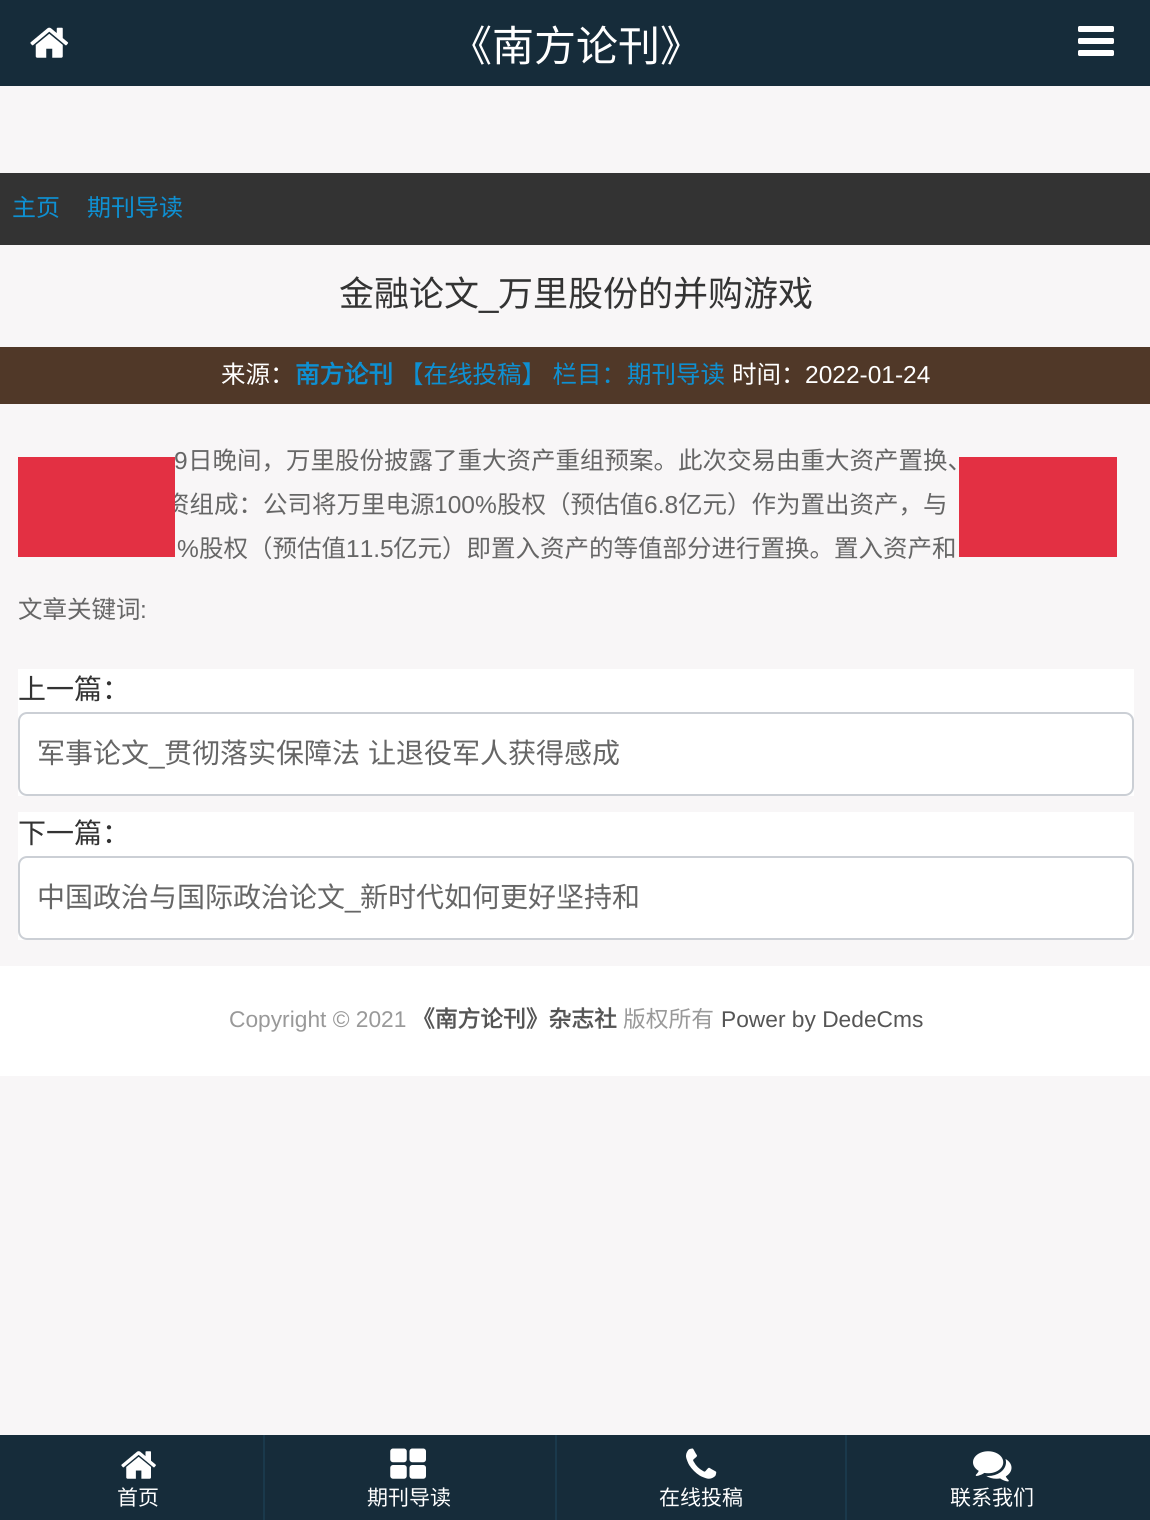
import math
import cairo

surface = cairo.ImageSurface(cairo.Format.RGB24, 1150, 1520)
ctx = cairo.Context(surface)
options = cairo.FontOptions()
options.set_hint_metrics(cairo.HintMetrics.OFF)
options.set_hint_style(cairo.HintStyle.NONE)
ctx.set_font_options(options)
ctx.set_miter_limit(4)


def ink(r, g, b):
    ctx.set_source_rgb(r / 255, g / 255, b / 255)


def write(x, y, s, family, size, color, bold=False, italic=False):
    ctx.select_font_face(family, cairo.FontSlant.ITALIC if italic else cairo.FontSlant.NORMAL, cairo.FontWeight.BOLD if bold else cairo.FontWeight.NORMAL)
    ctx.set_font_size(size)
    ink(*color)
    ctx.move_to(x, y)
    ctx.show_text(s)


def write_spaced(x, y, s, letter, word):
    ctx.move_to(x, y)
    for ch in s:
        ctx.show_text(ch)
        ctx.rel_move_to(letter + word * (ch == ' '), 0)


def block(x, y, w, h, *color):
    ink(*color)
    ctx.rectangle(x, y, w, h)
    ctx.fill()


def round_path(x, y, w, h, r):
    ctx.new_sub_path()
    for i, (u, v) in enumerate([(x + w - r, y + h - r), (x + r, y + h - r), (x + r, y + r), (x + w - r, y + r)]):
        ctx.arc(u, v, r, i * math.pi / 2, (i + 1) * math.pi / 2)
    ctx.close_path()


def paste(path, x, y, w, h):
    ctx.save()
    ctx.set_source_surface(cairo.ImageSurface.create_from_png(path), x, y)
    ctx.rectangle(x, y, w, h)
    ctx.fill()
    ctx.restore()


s1 = dict(family="Noto Sans CJK SC", size=42, color=(255, 255, 255))
s2 = dict(family="Noto Sans CJK SC", size=24, color=(14, 144, 210))
s3 = dict(family="Noto Sans CJK SC", size=35, color=(51, 51, 51))
s4 = dict(family="Liberation Sans", size=35, color=(51, 51, 51))
s5 = dict(family="Noto Sans CJK SC", size=24.5, color=(255, 255, 255))
s6 = dict(family="Noto Sans CJK SC", size=24.5, color=(14, 144, 210), bold=True)
s7 = dict(family="Noto Sans CJK SC", size=24.5, color=(14, 144, 210))
s8 = dict(family="Liberation Sans", size=24.5, color=(255, 255, 255))
s9 = dict(family="Liberation Sans", size=24.5, color=(102, 102, 102))
s10 = dict(family="Noto Sans CJK SC", size=24.5, color=(102, 102, 102))
s11 = dict(family="Noto Sans CJK SC", size=28, color=(51, 51, 51))
s12 = dict(family="Noto Sans CJK SC", size=28, color=(102, 102, 102))
s13 = dict(family="Liberation Sans", size=28, color=(102, 102, 102))
s14 = dict(family="Liberation Sans", size=22.75, color=(153, 153, 153))
s15 = dict(family="Noto Sans CJK SC", size=22.75, color=(85, 85, 85), bold=True)
s16 = dict(family="Noto Sans CJK SC", size=22.75, color=(153, 153, 153))
s17 = dict(family="Liberation Sans", size=22.75, color=(85, 85, 85))
s18 = dict(family="Noto Sans CJK SC", size=21, color=(255, 255, 255))

ink(248, 246, 247)
ctx.paint()
block(0, 0, 1150, 86, 22, 44, 58)
paste("pic1.png", 30, 27, 39, 31)
write(450, 61, "《南方论刊》", **s1)
paste("pic2.png", 1078, 26, 36, 30)
block(0, 173, 1150, 72, 51, 51, 51)
write(12, 216, "主页", **s2)
write(87, 216, "期刊导读", **s2)
write(339, 306, "金融论文", **s3)
write(498, 306, "万里股份的并购游戏", **s3)
write(479, 306, "_", **s4)
block(0, 347, 1150, 57, 80, 56, 40)
write(221, 383, "来源：", **s5)
write(295, 383, "南方论刊", **s6)
ctx.select_font_face("Noto Sans CJK SC")
write_spaced(399, 383, "【在线投稿】 栏目：", 0, 1)
write(627, 383, "期刊导读", **s7)
write(732, 383, "时间：", **s5)
write(805, 383, "2022-01-24", **s8)
write(174, 469, "9", **s9)
write(188, 469, "日晚间，万里股份披露了重大资产重组预案。此次交易由重大资产置换、", **s10)
write(165, 513, "资组成：公司将万里电源", **s10)
write(434, 513, "100%", **s9)
write(497, 513, "股权（预估值", **s10)
write(644, 513, "6.8", **s9)
write(678, 513, "亿元）作为置出资产，与", **s10)
write(177, 557, "%", **s9)
write(199, 557, "股权（预估值", **s10)
write(346, 557, "11.5", **s9)
write(393, 557, "亿元）即置入资产的等值部分进行置换。置入资产和", **s10)
write(18, 618, "文章关键词", **s10)
write(140, 618, ":", **s9)
block(18, 457, 157, 100, 227, 48, 67)
block(959, 457, 158, 100, 227, 48, 67)
block(18, 669, 1116, 127, 255, 255, 255)
write(18, 699, "上一篇：", **s11)
round_path(19, 713, 1114, 82, 8)
ink(203, 207, 213)
ctx.stroke()
write(37, 763, "军事论文", **s12)
write(164, 763, "贯彻落实保障法", **s12)
write(368, 763, "让退役军人获得感成", **s12)
write(149, 763, "_", **s13)
block(18, 812, 1116, 128, 255, 255, 255)
write(18, 843, "下一篇：", **s11)
round_path(19, 857, 1114, 82, 8)
ink(203, 207, 213)
ctx.stroke()
write(37, 907, "中国政治与国际政治论文", **s12)
write(360, 907, "新时代如何更好坚持和", **s12)
write(345, 907, "_", **s13)
block(0, 966, 1150, 110, 255, 255, 255)
write(229, 1027, "Copyright © 2021", **s14)
write(412, 1027, "《南方论刊》杂志社", **s15)
write(623, 1027, "版权所有", **s16)
write(721, 1027, "Power by DedeCms", **s17)
block(0, 1435, 1150, 85, 22, 44, 58)
block(263, 1435, 2, 85, 26, 57, 75)
paste("pic3.png", 121, 1451, 35, 28)
write(117, 1505, "首页", **s18)
block(555, 1435, 2, 85, 26, 57, 75)
paste("pic4.png", 390, 1448, 36, 31)
write(367, 1505, "期刊导读", **s18)
block(845, 1435, 2, 85, 26, 57, 75)
paste("pic5.png", 686, 1448, 31, 31)
write(659, 1505, "在线投稿", **s18)
paste("pic6.png", 973, 1451, 39, 31)
write(950, 1505, "联系我们", **s18)
surface.write_to_png("screenshot.png")
